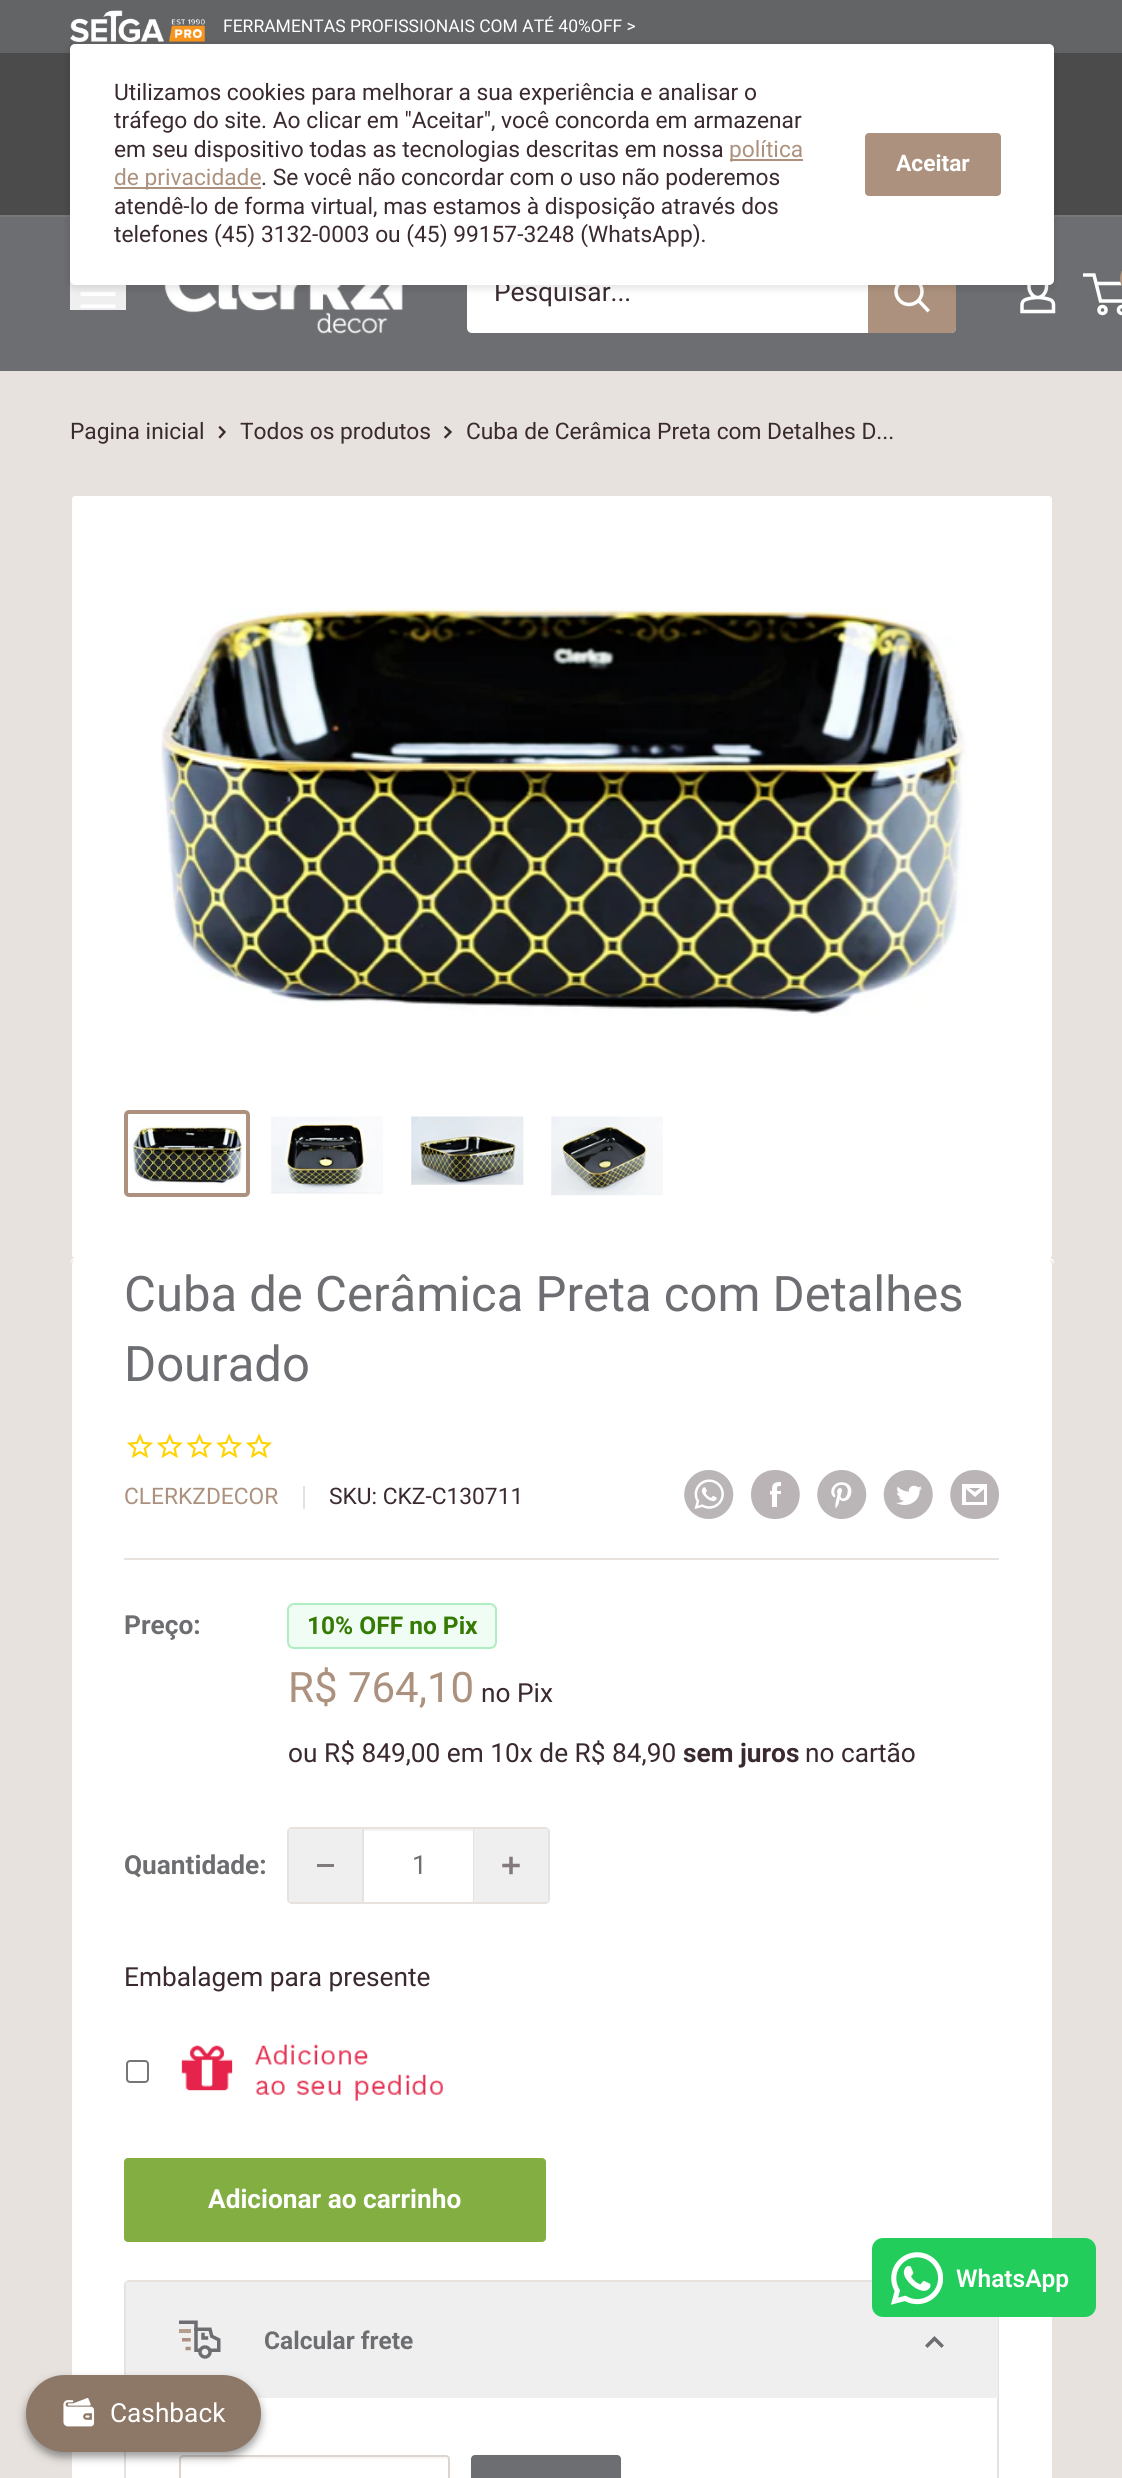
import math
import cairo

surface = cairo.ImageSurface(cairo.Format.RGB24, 1122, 2478)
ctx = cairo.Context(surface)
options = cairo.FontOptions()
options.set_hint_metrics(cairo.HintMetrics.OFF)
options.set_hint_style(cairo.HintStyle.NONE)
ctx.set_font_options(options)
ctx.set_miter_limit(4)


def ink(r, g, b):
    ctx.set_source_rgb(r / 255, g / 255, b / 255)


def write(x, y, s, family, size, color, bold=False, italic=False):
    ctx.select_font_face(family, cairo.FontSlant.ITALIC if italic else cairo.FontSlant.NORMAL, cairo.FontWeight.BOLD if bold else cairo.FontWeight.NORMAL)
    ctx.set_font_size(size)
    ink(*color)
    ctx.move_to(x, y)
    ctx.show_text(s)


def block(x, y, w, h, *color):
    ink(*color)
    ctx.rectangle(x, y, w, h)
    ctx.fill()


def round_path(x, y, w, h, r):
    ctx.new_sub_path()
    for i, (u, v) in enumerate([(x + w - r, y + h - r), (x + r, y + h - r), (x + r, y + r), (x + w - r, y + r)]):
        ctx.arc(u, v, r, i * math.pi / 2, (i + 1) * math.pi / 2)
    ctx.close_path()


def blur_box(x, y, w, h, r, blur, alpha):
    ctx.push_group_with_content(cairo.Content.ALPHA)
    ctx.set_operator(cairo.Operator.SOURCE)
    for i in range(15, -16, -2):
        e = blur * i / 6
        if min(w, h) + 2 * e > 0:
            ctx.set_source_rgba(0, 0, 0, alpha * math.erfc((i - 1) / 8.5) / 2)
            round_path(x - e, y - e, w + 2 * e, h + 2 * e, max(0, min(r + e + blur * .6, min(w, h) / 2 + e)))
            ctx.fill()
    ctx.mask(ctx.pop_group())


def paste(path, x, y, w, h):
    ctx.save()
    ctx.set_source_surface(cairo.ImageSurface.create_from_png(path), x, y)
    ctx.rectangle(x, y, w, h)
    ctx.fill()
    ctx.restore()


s1 = dict(family="Roboto", size=17.5, color=(255, 255, 255))
s2 = dict(family="Roboto", size=26.25, color=(58, 42, 47))
s3 = dict(family="Roboto", size=22.75, color=(58, 42, 47))
s4 = dict(family="Roboto", size=22.75, color=(172, 146, 126))
s5 = dict(family="Roboto", size=22.75, color=(255, 255, 255), bold=True)
s6 = dict(family="Roboto", size=49, color=(109, 110, 113))
s7 = dict(family="Roboto", size=26.25, color=(109, 110, 113), bold=True)
s8 = dict(family="Roboto", size=24.5, color=(53, 122, 3), bold=True)
s9 = dict(family="Roboto", size=42, color=(172, 146, 126))
s10 = dict(family="Roboto", size=26.25, color=(58, 42, 47), bold=True)
s11 = dict(family="Roboto", size=26.25, color=(109, 110, 113))
s12 = dict(family="Roboto", size=26.25, color=(255, 255, 255), bold=True)
s13 = dict(family="Roboto", size=24.5, color=(109, 110, 113), bold=True)
s14 = dict(family="Roboto SemiBold", size=24.5, color=(255, 255, 255))
s15 = dict(family="Roboto", size=26.25, color=(255, 255, 255))

ink(231, 226, 222)
ctx.paint()
block(0, 0, 1122, 53, 99, 100, 102)
paste("pic1.png", 70, 10, 135, 32)
write(223, 32, "FERRAMENTAS PROFISSIONAIS COM ATÉ 40%OFF >", **s1)
block(0, 53, 1122, 162, 75, 75, 75)
block(0, 215, 1122, 2, 122, 120, 119)
block(0, 217, 1122, 154, 109, 110, 113)
block(70, 280, 56, 30, 239, 239, 239)
ink(255, 255, 255)
ctx.set_fill_rule(cairo.FillRule.EVEN_ODD)
ctx.new_path()
ctx.move_to(80.5, 304.5)
ctx.line_to(115.5, 304.5)
ctx.line_to(115.5, 308)
ctx.line_to(80.5, 308)
ctx.close_path()
ctx.move_to(80.5, 280)
ctx.line_to(115.5, 280)
ctx.line_to(115.5, 283.5)
ctx.line_to(80.5, 283.5)
ctx.close_path()
ctx.move_to(80.5, 292)
ctx.line_to(115.5, 292)
ctx.line_to(115.5, 296)
ctx.line_to(80.5, 296)
ctx.close_path()
ctx.fill()
paste("pic2.png", 164, 285, 239, 49)
round_path(467, 256, 489, 77, 5)
ctx.fill()
ink(172, 146, 126)
ctx.new_path()
ctx.move_to(868, 256)
ctx.line_to(951, 256)
ctx.curve_to(954, 256, 956, 258, 956, 261)
ctx.line_to(956, 328)
ctx.curve_to(956, 331, 954, 333, 951, 333)
ctx.line_to(868, 333)
ctx.close_path()
ctx.fill()
ctx.new_path()
ctx.move_to(927.5, 310)
ctx.line_to(919, 301)
ink(255, 255, 255)
ctx.set_line_width(3.5)
ctx.set_line_cap(cairo.LineCap.SQUARE)
ctx.stroke()
ctx.arc(909, 291.5, 13, 0, 2 * math.pi)
ctx.set_line_cap(cairo.LineCap.BUTT)
ctx.stroke()
paste("pic3.png", 1020, 285, 36, 29)
ink(0, 0, 0)
blur_box(68, 44, 987, 245, 7, 3.5, 0.1)
write(494, 301, "Pesquisar...", **s2)
ink(255, 255, 255)
round_path(70, 44, 984, 241, 5)
ctx.fill()
write(114, 100, "Utilizamos cookies para melhorar a sua experiência e analisar o", **s3)
write(114, 128, "tráfego do site. Ao clicar em \"Aceitar\", você concorda em armazenar", **s3)
write(114, 157, "em seu dispositivo todas as tecnologias descritas em nossa", **s3)
block(730, 159, 73, 2, 172, 146, 126)
write(729, 157, "política", **s4)
block(114, 187, 147, 2, 172, 146, 126)
write(114, 185, "de privacidade", **s4)
write(261, 185, ". Se você não concordar com o uso não poderemos", **s3)
write(114, 214, "atendê-lo de forma virtual, mas estamos à disposição através dos", **s3)
write(114, 242, "telefones (45) 3132-0003 ou (45) 99157-3248 (WhatsApp).", **s3)
ink(172, 146, 126)
round_path(865, 133, 136, 63, 4)
ctx.fill()
write(896, 171, "Aceitar", **s5)
ctx.new_path()
ctx.arc(1102.5, 310, 3.5, 0, 2 * math.pi)
ctx.stroke()
ctx.arc(1122, 310, 3.5, 0, 2 * math.pi)
ctx.stroke()
ctx.new_path()
ctx.move_to(1096, 283.5)
ctx.line_to(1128, 283.5)
ctx.line_to(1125.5, 301)
ctx.line_to(1100.5, 301)
ctx.line_to(1094, 275)
ctx.line_to(1083, 275)
ctx.stroke()
ink(172, 146, 126)
round_path(1120, 261, 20, 35, 17.5)
ctx.fill()
write(70, 439, "Pagina inicial", **s3)
ctx.new_path()
ctx.move_to(220, 427.5)
ctx.line_to(224.5, 432)
ctx.line_to(220, 437)
ctx.set_line_width(2.3)
ctx.set_line_cap(cairo.LineCap.SQUARE)
ctx.stroke()
write(240, 439, "Todos os produtos", **s3)
ctx.new_path()
ctx.move_to(445.5, 427.5)
ctx.line_to(450.5, 432)
ctx.line_to(445.5, 437)
ctx.stroke()
write(466, 439, "Cuba de Cerâmica Preta com Detalhes D...", **s3)
ink(255, 255, 255)
round_path(71, 495, 982, 764, 4)
ctx.fill_preserve()
ink(231, 226, 222)
ctx.set_line_width(2)
ctx.set_line_cap(cairo.LineCap.BUTT)
ctx.stroke()
paste("pic4.png", 161, 608, 806, 408)
round_path(126, 1112, 122, 83, 3)
ink(172, 146, 126)
ctx.set_line_width(4)
ctx.stroke()
paste("pic5.png", 131, 1125, 111, 61)
paste("pic6.png", 271, 1116, 112, 78)
paste("pic7.png", 411, 1116, 113, 69)
paste("pic8.png", 551, 1116, 112, 80)
ink(255, 255, 255)
ctx.set_fill_rule(cairo.FillRule.WINDING)
ctx.new_path()
ctx.move_to(75, 1258)
ctx.curve_to(71, 1258, 70, 1262, 70, 1265)
ctx.curve_to(70, 1262, 72, 1260, 75, 1260)
ctx.line_to(1048, 1260)
ctx.curve_to(1051, 1260, 1054, 1262, 1054, 1265)
ctx.line_to(1053, 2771)
ctx.line_to(1054, 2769)
ctx.line_to(1054, 1263)
ctx.curve_to(1054, 1260, 1052, 1258, 1049, 1258)
ctx.close_path()
ctx.fill()
round_path(70, 1260, 984, 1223, 5)
ctx.fill()
ink(231, 226, 222)
ctx.set_fill_rule(cairo.FillRule.EVEN_ODD)
ctx.new_path()
ctx.move_to(75, 1260)
ctx.line_to(1048, 1260)
ctx.curve_to(1051, 1260, 1054, 1262, 1054, 1265)
ctx.line_to(1054, 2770)
ctx.curve_to(1054, 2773, 1051, 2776, 1048, 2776)
ctx.line_to(75, 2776)
ctx.curve_to(72, 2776, 70, 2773, 70, 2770)
ctx.line_to(70, 1265)
ctx.curve_to(70, 1262, 72, 1260, 75, 1260)
ctx.close_path()
ctx.move_to(75, 1260)
ctx.line_to(1048, 1260)
ctx.curve_to(1050, 1260, 1052, 1262, 1052, 1265)
ctx.line_to(1052, 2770)
ctx.curve_to(1052, 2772, 1050, 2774, 1048, 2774)
ctx.line_to(75, 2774)
ctx.curve_to(73, 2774, 72, 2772, 72, 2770)
ctx.line_to(72, 1265)
ctx.curve_to(72, 1262, 73, 1260, 75, 1260)
ctx.close_path()
ctx.fill()
write(124, 1311, "Cuba de Cerâmica Preta com Detalhes", **s6)
write(124, 1381, "Dourado", **s6)
paste("pic9.png", 127, 1433, 26, 25)
paste("pic10.png", 156, 1433, 27, 25)
paste("pic11.png", 186, 1433, 27, 25)
paste("pic12.png", 216, 1433, 27, 25)
paste("pic9.png", 246, 1433, 26, 25)
write(124, 1504, "CLERKZDECOR", **s4)
block(303, 1486, 2, 23, 231, 226, 222)
write(329, 1504, "SKU: CKZ-C130711", **s3)
paste("pic13.png", 684, 1470, 50, 49)
ink(186, 180, 182)
ctx.new_path()
ctx.move_to(775, 1519)
ctx.curve_to(743, 1519, 743, 1470, 775, 1470)
ctx.curve_to(808, 1470, 808, 1519, 775, 1519)
ctx.close_path()
ctx.move_to(781, 1491)
ctx.line_to(777, 1491)
ctx.curve_to(777, 1487, 776, 1486, 781, 1486)
ctx.line_to(781, 1482)
ctx.curve_to(773, 1482, 772, 1484, 772, 1491)
ctx.line_to(770, 1491)
ctx.line_to(770, 1495)
ctx.line_to(772, 1494)
ctx.line_to(772, 1507)
ctx.line_to(777, 1507)
ctx.line_to(777, 1494)
ctx.line_to(781, 1494)
ctx.close_path()
ctx.fill()
paste("pic14.png", 817, 1470, 50, 49)
paste("pic15.png", 883, 1470, 50, 49)
ctx.set_fill_rule(cairo.FillRule.WINDING)
ctx.new_path()
ctx.move_to(975, 1519)
ctx.curve_to(942, 1519, 942, 1470, 975, 1470)
ctx.curve_to(1007, 1470, 1007, 1519, 975, 1519)
ctx.close_path()
ctx.move_to(969, 1488)
ctx.line_to(980, 1488)
ctx.line_to(975, 1492)
ctx.close_path()
ctx.move_to(984, 1489)
ctx.line_to(984, 1502)
ctx.line_to(966, 1502)
ctx.line_to(966, 1489)
ctx.line_to(975, 1497)
ctx.close_path()
ctx.move_to(987, 1484)
ctx.line_to(962, 1484)
ctx.line_to(962, 1505)
ctx.line_to(987, 1505)
ctx.close_path()
ctx.fill()
block(124, 1558, 875, 2, 231, 226, 222)
write(124, 1634, "Preço:", **s7)
ink(240, 253, 244)
round_path(288, 1604, 208, 44, 6)
ctx.fill_preserve()
ink(175, 237, 194)
ctx.set_line_width(2)
ctx.stroke()
write(307, 1634, "10% OFF no Pix", **s8)
write(288, 1702, "R$ 764,10", **s9)
write(481, 1702, "no Pix", **s2)
write(288, 1762, "ou R$ 849,00 em 10x de R$ 84,90", **s2)
write(683, 1762, "sem juros", **s10)
write(805, 1762, "no cartão", **s2)
write(124, 1874, "Quantidade:", **s7)
round_path(288, 1828, 261, 75, 4)
ink(231, 226, 222)
ctx.stroke()
block(289, 1829, 73, 73, 239, 239, 239)
block(317, 1864, 17, 3, 130, 121, 124)
block(364, 1829, 109, 2, 245, 243, 242)
block(473, 1829, 1, 73, 231, 226, 222)
block(362, 1829, 2, 73, 231, 226, 222)
write(412, 1874, "1", **s11)
block(474, 1829, 74, 73, 239, 239, 239)
paste("pic16.png", 502, 1856, 18, 19)
write(124, 1986, "Embalagem para presente", **s2)
round_path(127, 2061, 21, 21, 3)
ink(118, 118, 118)
ctx.stroke()
paste("pic17.png", 181, 2040, 262, 61)
ink(131, 174, 66)
round_path(124, 2158, 422, 84, 4)
ctx.fill()
write(208, 2208, "Adicionar ao carrinho", **s12)
round_path(125, 2281, 873, 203, 4)
ink(231, 226, 222)
ctx.stroke()
block(126, 2282, 872, 116, 239, 239, 239)
paste("pic18.png", 179, 2320, 42, 39)
write(264, 2349, "Calcular frete", **s13)
ctx.new_path()
ctx.move_to(927.5, 2345.5)
ctx.line_to(934.5, 2338.5)
ctx.line_to(941.5, 2345.5)
ctx.set_line_width(3.5)
ctx.set_line_cap(cairo.LineCap.SQUARE)
ctx.stroke()
ink(249, 248, 247)
ctx.new_path()
ctx.move_to(182, 2459)
ctx.line_to(446, 2459)
ctx.line_to(448, 2460)
ctx.line_to(448, 2458)
ctx.line_to(446, 2457)
ctx.line_to(182, 2457)
ctx.curve_to(180, 2457, 180, 2459, 180, 2460)
ctx.close_path()
ctx.fill()
round_path(180, 2456, 269, 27, 3)
ink(220, 213, 207)
ctx.set_line_width(2)
ctx.set_line_cap(cairo.LineCap.BUTT)
ctx.stroke()
ink(109, 110, 113)
round_path(471, 2455, 150, 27, 4)
ctx.fill()
ink(34, 205, 91)
round_path(872, 2238, 224, 79, 11)
ctx.fill()
paste("pic19.png", 891, 2252, 52, 53)
write(956, 2287, "WhatsApp", **s14)
ink(0, 0, 0)
blur_box(26, 2380, 235, 77, 38.5, 4.5, 0.4)
ink(141, 119, 102)
round_path(26, 2375, 235, 77, 38.5)
ctx.fill()
paste("pic20.png", 63, 2398, 32, 29)
write(110, 2422, "Cashback", **s15)
surface.write_to_png("screenshot.png")
